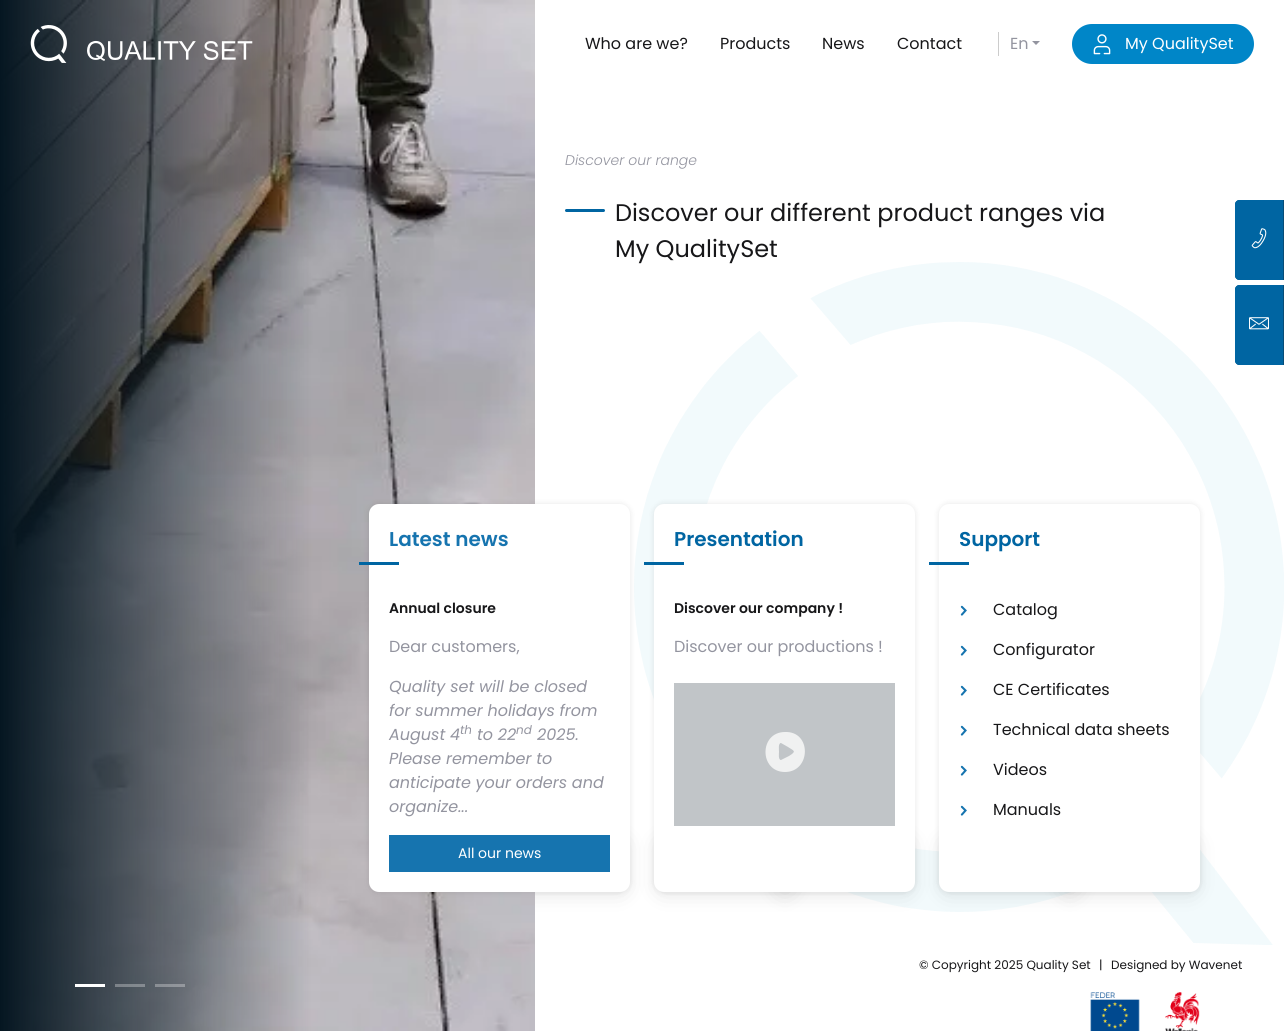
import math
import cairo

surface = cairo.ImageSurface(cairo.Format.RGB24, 1284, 1031)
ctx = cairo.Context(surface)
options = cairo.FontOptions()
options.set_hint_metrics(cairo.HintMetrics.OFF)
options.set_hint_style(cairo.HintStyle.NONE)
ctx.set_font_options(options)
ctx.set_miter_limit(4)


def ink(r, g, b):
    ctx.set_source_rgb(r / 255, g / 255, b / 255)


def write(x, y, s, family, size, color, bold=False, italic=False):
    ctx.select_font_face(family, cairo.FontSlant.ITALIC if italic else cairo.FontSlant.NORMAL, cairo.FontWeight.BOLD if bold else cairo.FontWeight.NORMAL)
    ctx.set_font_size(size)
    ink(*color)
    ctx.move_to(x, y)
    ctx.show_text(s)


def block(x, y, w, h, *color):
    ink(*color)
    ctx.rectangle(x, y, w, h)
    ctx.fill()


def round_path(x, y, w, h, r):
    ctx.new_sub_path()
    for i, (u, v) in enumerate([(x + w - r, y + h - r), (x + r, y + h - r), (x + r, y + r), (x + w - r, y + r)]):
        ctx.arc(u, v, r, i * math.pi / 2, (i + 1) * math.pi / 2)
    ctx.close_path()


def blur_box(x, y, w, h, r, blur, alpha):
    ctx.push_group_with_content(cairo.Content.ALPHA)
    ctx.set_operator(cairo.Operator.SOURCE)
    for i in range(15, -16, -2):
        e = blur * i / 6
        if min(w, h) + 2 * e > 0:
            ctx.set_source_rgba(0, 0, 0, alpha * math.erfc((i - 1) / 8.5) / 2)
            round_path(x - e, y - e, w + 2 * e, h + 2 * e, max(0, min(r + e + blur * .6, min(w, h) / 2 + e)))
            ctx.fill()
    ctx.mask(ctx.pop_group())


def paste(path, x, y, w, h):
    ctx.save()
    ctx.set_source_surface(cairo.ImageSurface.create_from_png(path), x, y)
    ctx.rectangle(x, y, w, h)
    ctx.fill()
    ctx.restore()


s1 = dict(family="Poppins", size=16, color=(23, 23, 25))
s2 = dict(family="Poppins", size=16, color=(147, 148, 159))
s3 = dict(family="Poppins", size=16, color=(255, 255, 255))
s4 = dict(family="Poppins Light", size=14, color=(147, 148, 159), italic=True)
s5 = dict(family="Poppins", size=24, color=(23, 23, 25))
s6 = dict(family="Poppins SemiBold", size=20, color=(22, 116, 175))
s7 = dict(family="Poppins SemiBold", size=14, color=(23, 23, 25))
s8 = dict(family="Poppins", size=16, color=(147, 148, 159), italic=True)
s9 = dict(family="Poppins", size=12, color=(147, 148, 159), italic=True)
s10 = dict(family="Poppins", size=14, color=(255, 255, 255))
s11 = dict(family="Poppins SemiBold", size=20, color=(0, 101, 162))
s12 = dict(family="Poppins", size=12, color=(23, 23, 25))

ink(255, 255, 255)
ctx.paint()
ink(0, 0, 0)
blur_box(495, 844, 127, 45, 0, 12.5, 0.15)
paste("pic3.png", 0, 0, 535, 1031)
paste("pic1.png", 30, 25, 223, 38)
write(585, 49, "Who are we?", **s1)
write(720, 49, "Products", **s1)
write(822, 49, "News", **s1)
write(897, 49, "Contact", **s1)
block(998, 32, 1, 24, 204, 204, 204)
write(1010, 49, "En", **s2)
ctx.new_path()
ctx.move_to(1032, 41)
ctx.line_to(1040, 41)
ctx.line_to(1036, 45)
ctx.close_path()
ctx.fill()
ink(0, 134, 200)
round_path(1072, 24, 182, 40, 20)
ctx.fill()
paste("pic2.png", 1093, 34, 18, 21)
write(1125, 49, "My QualitySet", **s3)
block(75, 984, 30, 3, 255, 255, 255)
ctx.set_source_rgba(1, 1, 1, 0.3)
ctx.rectangle(115, 984, 30, 3)
ctx.fill()
ctx.rectangle(155, 984, 30, 3)
ctx.fill()
write(565, 165, "Discover our range", **s4)
ink(0, 101, 162)
round_path(565, 209, 40, 3, 1.5)
ctx.fill()
write(615, 221, "Discover our different product ranges via", **s5)
ink(0, 0, 0)
blur_box(662, 844, 128, 45, 0, 12.5, 0.15)
blur_box(780, 844, 127, 45, 0, 12.5, 0.15)
blur_box(947, 844, 128, 45, 0, 12.5, 0.15)
blur_box(1065, 844, 127, 45, 0, 12.5, 0.15)
paste("pic4.png", 634, 262, 650, 683)
write(615, 257, "My QualitySet", **s5)
ink(0, 0, 0)
blur_box(369, 504, 261, 388, 10, 3, 0.1)
ink(255, 255, 255)
round_path(369, 504, 261, 388, 10)
ctx.fill()
write(389, 546, "Latest news", **s6)
block(359, 562, 40, 3, 0, 101, 162)
write(389, 613, "Annual closure", **s7)
write(389, 652, "Dear customers,", **s2)
write(389, 692, "Quality set will be closed", **s8)
write(389, 716, "for summer holidays from", **s8)
write(389, 740, "August 4", **s8)
write(460, 734, "th", **s9)
write(477, 740, "to 22", **s8)
write(516, 734, "nd", **s9)
write(537, 740, "2025.", **s8)
write(389, 764, "Please remember to", **s8)
write(389, 788, "anticipate your orders and", **s8)
write(389, 812, "organize...", **s8)
block(389, 835, 221, 37, 22, 116, 175)
write(458, 858, "All our news", **s10)
ink(0, 0, 0)
blur_box(654, 504, 261, 388, 10, 3, 0.1)
ink(255, 255, 255)
round_path(654, 504, 261, 388, 10)
ctx.fill()
write(674, 546, "Presentation", **s11)
block(644, 562, 40, 3, 0, 101, 162)
write(674, 613, "Discover our company !", **s7)
write(674, 652, "Discover our productions !", **s2)
block(674, 683, 221, 143, 193, 197, 200)
ink(240, 241, 241)
ctx.new_path()
ctx.move_to(785, 772)
ctx.curve_to(759, 772, 759, 732, 785, 732)
ctx.curve_to(812, 731, 811, 772, 785, 772)
ctx.close_path()
ctx.move_to(781, 743)
ctx.curve_to(778, 743, 779, 750, 779, 752)
ctx.curve_to(779, 753, 778, 760, 781, 760)
ctx.line_to(789, 756)
ctx.curve_to(797, 751, 794, 751, 788, 747)
ctx.close_path()
ctx.fill()
ink(0, 0, 0)
blur_box(939, 504, 261, 388, 10, 3, 0.1)
ink(255, 255, 255)
round_path(939, 504, 261, 388, 10)
ctx.fill()
write(959, 546, "Support", **s11)
block(929, 562, 40, 3, 0, 101, 162)
paste("pic5.png", 960, 605, 7, 11)
write(993, 615, "Catalog", **s1)
paste("pic5.png", 960, 645, 7, 11)
write(993, 655, "Configurator", **s1)
paste("pic5.png", 960, 685, 7, 11)
write(993, 695, "CE Certificates", **s1)
paste("pic5.png", 960, 725, 7, 11)
write(993, 735, "Technical data sheets", **s1)
paste("pic5.png", 960, 765, 7, 11)
write(993, 775, "Videos", **s1)
paste("pic5.png", 960, 805, 7, 11)
write(993, 815, "Manuals", **s1)
ink(6, 77, 120)
ctx.new_path()
ctx.move_to(1240, 200)
ctx.line_to(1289, 200)
ctx.line_to(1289, 280)
ctx.line_to(1240, 280)
ctx.curve_to(1237, 280, 1235, 278, 1235, 275)
ctx.line_to(1235, 205)
ctx.curve_to(1235, 202, 1237, 200, 1240, 200)
ctx.close_path()
ctx.fill()
ink(0, 101, 162)
ctx.new_path()
ctx.move_to(1235, 276)
ctx.line_to(1235, 204)
ctx.curve_to(1235, 202, 1237, 200, 1239, 200)
ctx.line_to(1283, 200)
ctx.line_to(1283, 280)
ctx.line_to(1239, 280)
ctx.curve_to(1237, 280, 1235, 278, 1235, 276)
ctx.close_path()
ctx.fill()
paste("pic6.png", 1251, 228, 16, 21)
ink(6, 77, 120)
ctx.new_path()
ctx.move_to(1240, 285)
ctx.line_to(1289, 285)
ctx.line_to(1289, 365)
ctx.line_to(1240, 365)
ctx.curve_to(1237, 365, 1235, 363, 1235, 360)
ctx.line_to(1235, 290)
ctx.curve_to(1235, 287, 1237, 285, 1240, 285)
ctx.close_path()
ctx.fill()
ink(0, 101, 162)
ctx.new_path()
ctx.move_to(1235, 361)
ctx.line_to(1235, 289)
ctx.curve_to(1235, 287, 1237, 285, 1239, 285)
ctx.line_to(1283, 285)
ctx.line_to(1283, 365)
ctx.line_to(1239, 365)
ctx.curve_to(1237, 365, 1235, 363, 1235, 361)
ctx.close_path()
ctx.fill()
paste("pic7.png", 1249, 317, 20, 13)
write(919, 969, "© Copyright 2025 Quality Set", **s12)
write(1099, 969, "|", **s12)
write(1111, 969, "Designed by Wavenet", **s12)
paste("pic8.png", 1090, 992, 110, 39)
surface.write_to_png("screenshot.png")
